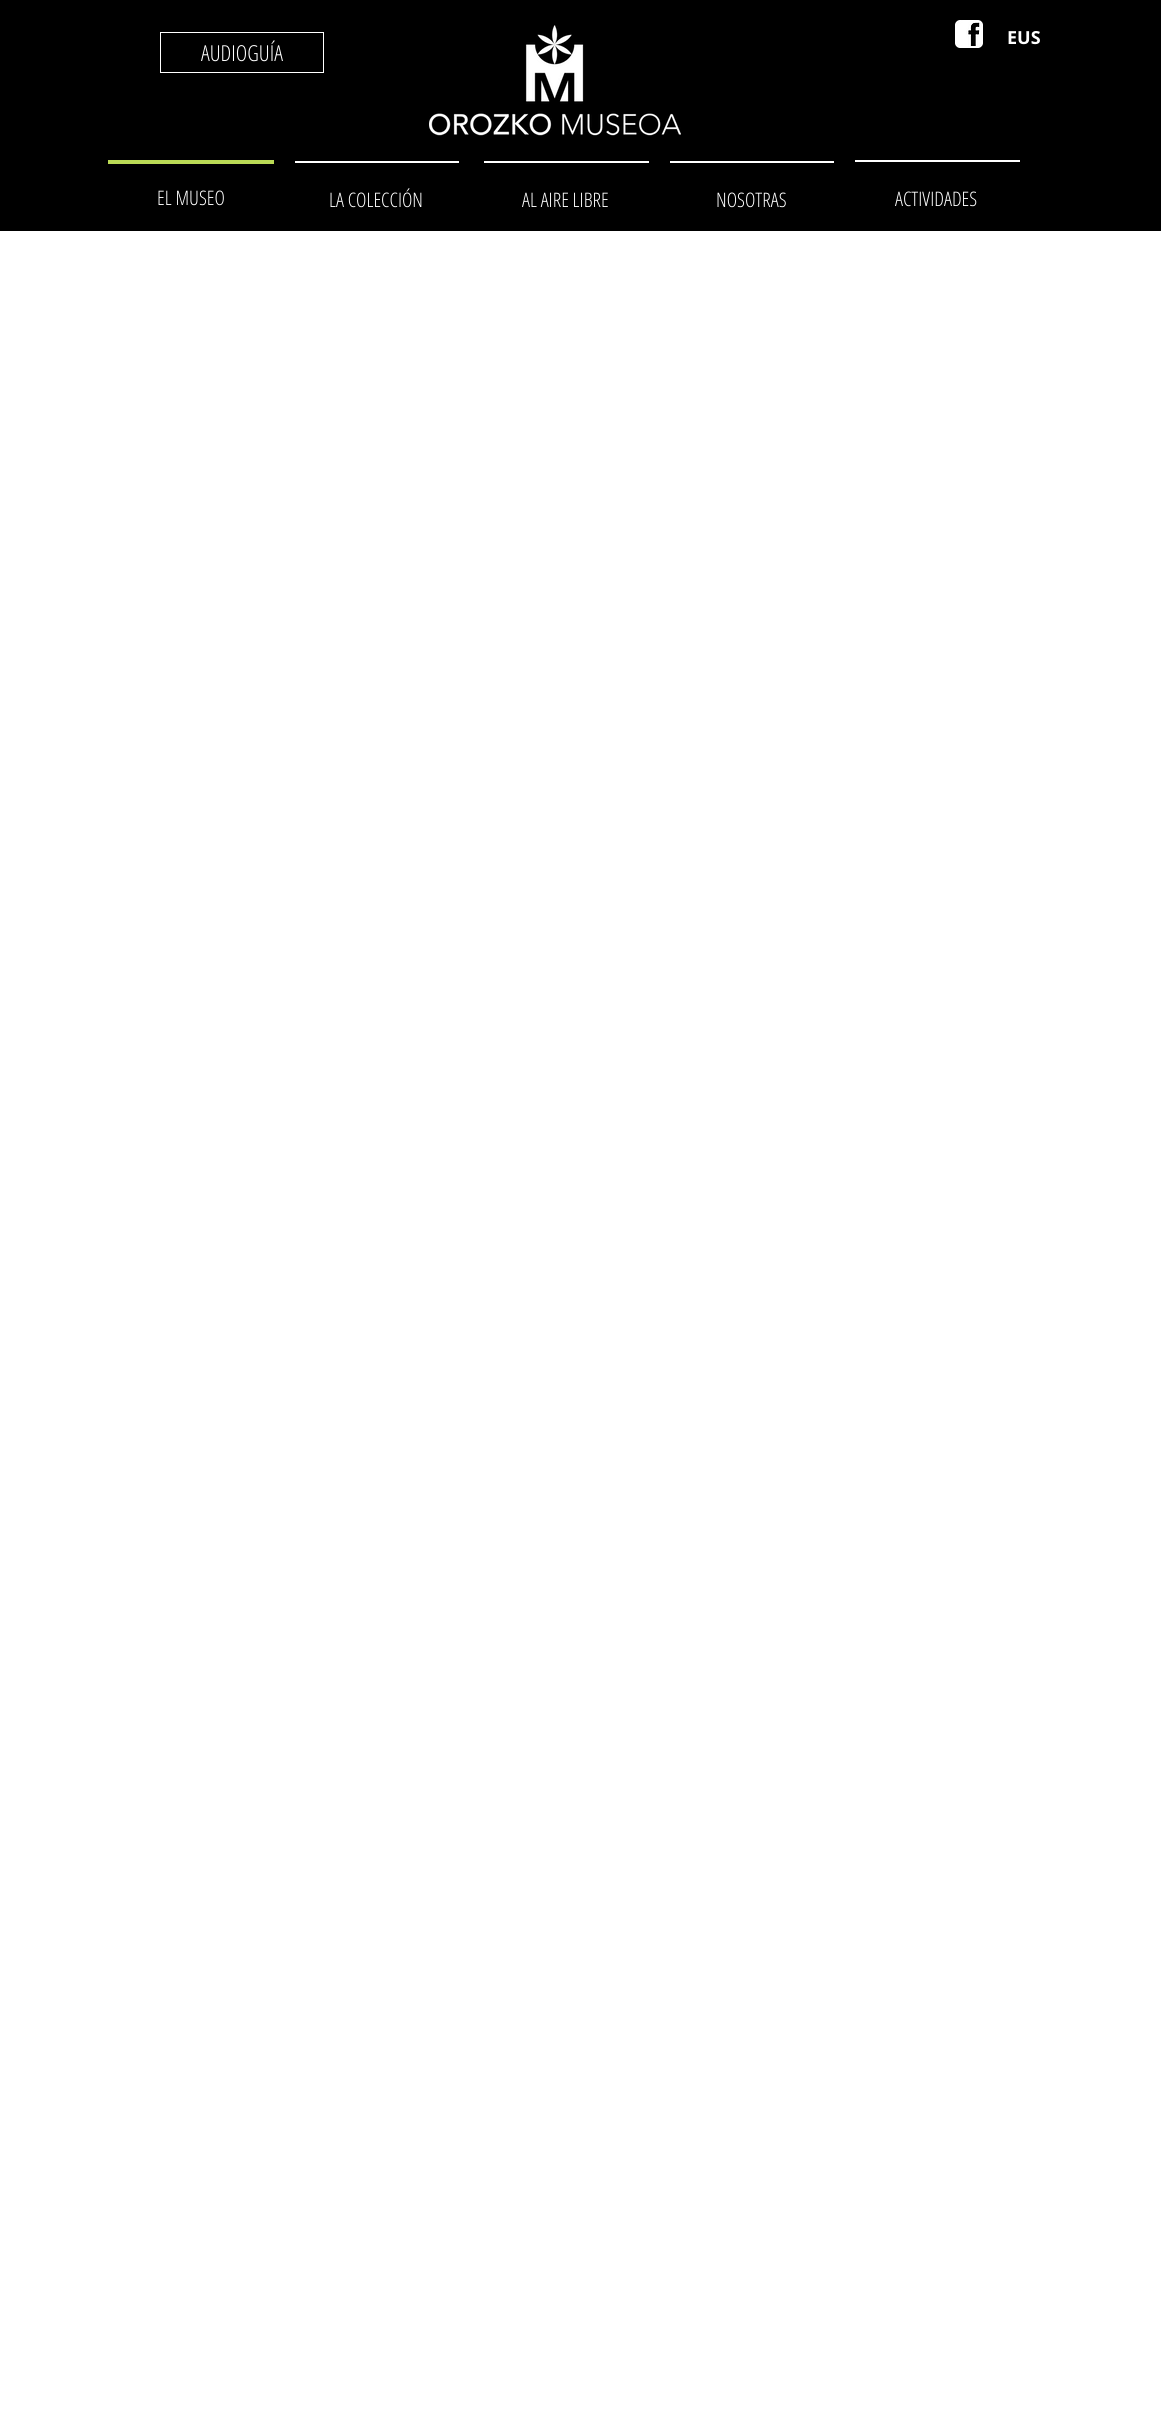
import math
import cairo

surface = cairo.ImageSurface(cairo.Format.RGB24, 1161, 2420)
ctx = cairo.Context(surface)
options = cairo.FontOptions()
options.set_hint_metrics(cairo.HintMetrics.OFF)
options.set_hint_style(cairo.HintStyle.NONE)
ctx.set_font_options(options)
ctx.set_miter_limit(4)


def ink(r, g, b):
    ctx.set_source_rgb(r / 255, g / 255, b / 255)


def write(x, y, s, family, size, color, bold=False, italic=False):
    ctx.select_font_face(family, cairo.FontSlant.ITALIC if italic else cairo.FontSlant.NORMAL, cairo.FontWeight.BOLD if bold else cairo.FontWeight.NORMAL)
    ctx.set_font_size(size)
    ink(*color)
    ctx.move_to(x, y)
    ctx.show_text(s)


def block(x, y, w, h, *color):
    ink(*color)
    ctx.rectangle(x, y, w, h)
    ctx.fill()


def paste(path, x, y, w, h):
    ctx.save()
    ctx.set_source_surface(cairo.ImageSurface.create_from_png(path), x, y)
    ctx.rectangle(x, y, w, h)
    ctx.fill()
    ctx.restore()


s1 = dict(family="Open Sans", size=18, color=(255, 255, 255), bold=True)
s2 = dict(family="Open Sans Condensed Light", size=22, color=(255, 255, 255))
s3 = dict(family="Open Sans Condensed Light", size=20, color=(255, 255, 255))

ink(255, 255, 255)
ctx.paint()
block(0, 0, 1161, 231, 0, 0, 0)
paste("pic1.png", 429, 25, 252, 111)
paste("pic2.png", 955, 20, 28, 28)
write(1007, 44, "EUS", **s1)
ctx.rectangle(160.5, 32.5, 163, 40)
ctx.set_line_width(1)
ctx.stroke()
write(201, 61, "AUDIOGUÍA", **s2)
block(108, 160, 166, 4, 186, 218, 85)
block(295, 161, 164, 2, 255, 255, 255)
block(484, 161, 165, 2, 255, 255, 255)
block(670, 161, 164, 2, 255, 255, 255)
block(855, 160, 165, 2, 255, 255, 255)
write(157, 205, "EL MUSEO", **s3)
write(329, 207, "LA COLECCIÓN", **s3)
write(522, 207, "AL AIRE LIBRE", **s3)
write(716, 207, "NOSOTRAS", **s3)
write(895, 206, "ACTIVIDADES", **s3)
surface.write_to_png("screenshot.png")
